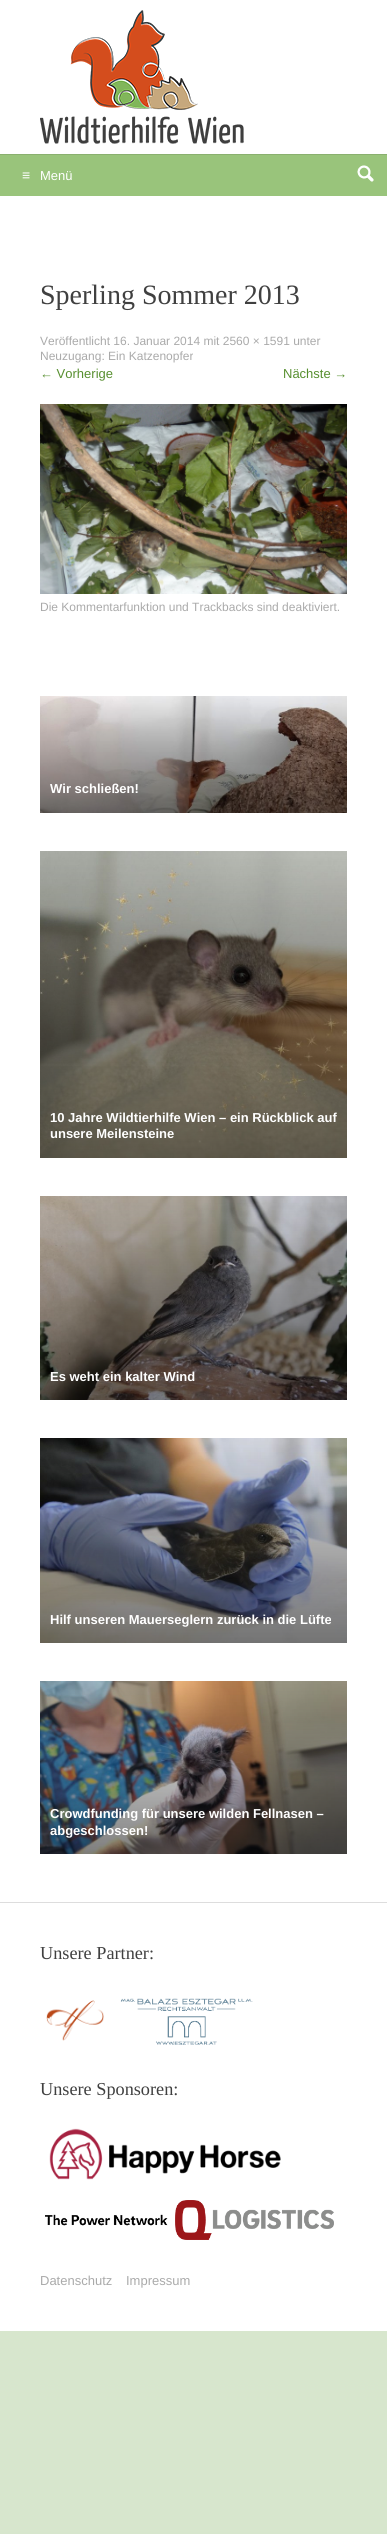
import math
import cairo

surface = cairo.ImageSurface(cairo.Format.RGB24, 387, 2534)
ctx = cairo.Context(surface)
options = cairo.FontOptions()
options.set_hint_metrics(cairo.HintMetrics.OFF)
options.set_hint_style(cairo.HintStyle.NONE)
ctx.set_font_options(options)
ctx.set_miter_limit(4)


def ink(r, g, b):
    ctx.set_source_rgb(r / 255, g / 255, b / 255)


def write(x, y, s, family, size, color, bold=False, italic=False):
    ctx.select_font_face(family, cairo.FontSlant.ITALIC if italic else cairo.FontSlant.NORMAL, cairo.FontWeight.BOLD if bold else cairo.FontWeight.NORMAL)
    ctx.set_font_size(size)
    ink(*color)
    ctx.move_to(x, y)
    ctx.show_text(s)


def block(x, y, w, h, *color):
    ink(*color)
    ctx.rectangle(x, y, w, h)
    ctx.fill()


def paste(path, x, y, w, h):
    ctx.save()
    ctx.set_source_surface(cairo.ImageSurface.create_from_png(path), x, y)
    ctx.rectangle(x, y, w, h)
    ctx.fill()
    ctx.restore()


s1 = dict(family="Liberation Sans", size=14, color=(255, 255, 255))
s2 = dict(family="Liberation Sans", size=13, color=(255, 255, 255))
s3 = dict(family="Liberation Serif", size=28, color=(64, 64, 64))
s4 = dict(family="Liberation Sans", size=12, color=(170, 170, 170))
s5 = dict(family="Liberation Sans", size=13, color=(87, 143, 47))
s6 = dict(family="Liberation Sans", size=13, color=(255, 255, 255), bold=True)
s7 = dict(family="Liberation Serif", size=18.25, color=(64, 64, 64))
s8 = dict(family="Liberation Sans", size=13, color=(170, 170, 170))

ink(215, 230, 205)
ctx.paint()
block(0, 0, 387, 2331, 255, 255, 255)
paste("pic1.png", 40, 10, 204, 134)
block(0, 154, 387, 1, 138, 176, 111)
block(0, 155, 387, 41, 153, 196, 123)
write(22, 180, "≡", **s1)
write(40, 180, "Menü", **s2)
paste("pic2.png", 357, 165, 17, 17)
write(40, 304, "Sperling Sommer 2013", **s3)
write(40, 345, "Veröffentlicht 16. Januar 2014 mit 2560 × 1591 unter", **s4)
write(40, 360, "Neuzugang: Ein Katzenopfer", **s4)
write(40, 378, "← Vorherige", **s5)
write(283, 378, "Nächste →", **s5)
paste("pic3.png", 40, 404, 307, 190)
write(40, 611, "Die Kommentarfunktion und Trackbacks sind deaktiviert.", **s4)
paste("pic4.png", 40, 696, 307, 117)
write(50, 793, "Wir schließen!", **s6)
paste("pic5.png", 40, 851, 307, 307)
write(50, 1122, "10 Jahre Wildtierhilfe Wien – ein Rückblick auf", **s6)
write(50, 1138, "unsere Meilensteine", **s6)
paste("pic6.png", 40, 1196, 307, 204)
write(50, 1381, "Es weht ein kalter Wind", **s6)
paste("pic7.png", 40, 1438, 307, 205)
write(50, 1624, "Hilf unseren Mauerseglern zurück in die Lüfte", **s6)
paste("pic8.png", 40, 1681, 307, 173)
write(50, 1818, "Crowdfunding für unsere wilden Fellnasen –", **s6)
write(50, 1835, "abgeschlossen!", **s6)
block(0, 1902, 387, 1, 221, 221, 221)
write(40, 1959, "Unsere Partner:", **s7)
paste("pic9.png", 46, 2000, 58, 41)
paste("pic10.png", 120, 1998, 133, 47)
write(40, 2095, "Unsere Sponsoren:", **s7)
paste("pic11.png", 49, 2128, 232, 52)
paste("pic12.png", 45, 2200, 289, 40)
write(40, 2285, "Datenschutz", **s8)
write(126, 2285, "Impressum", **s8)
surface.write_to_png("screenshot.png")
